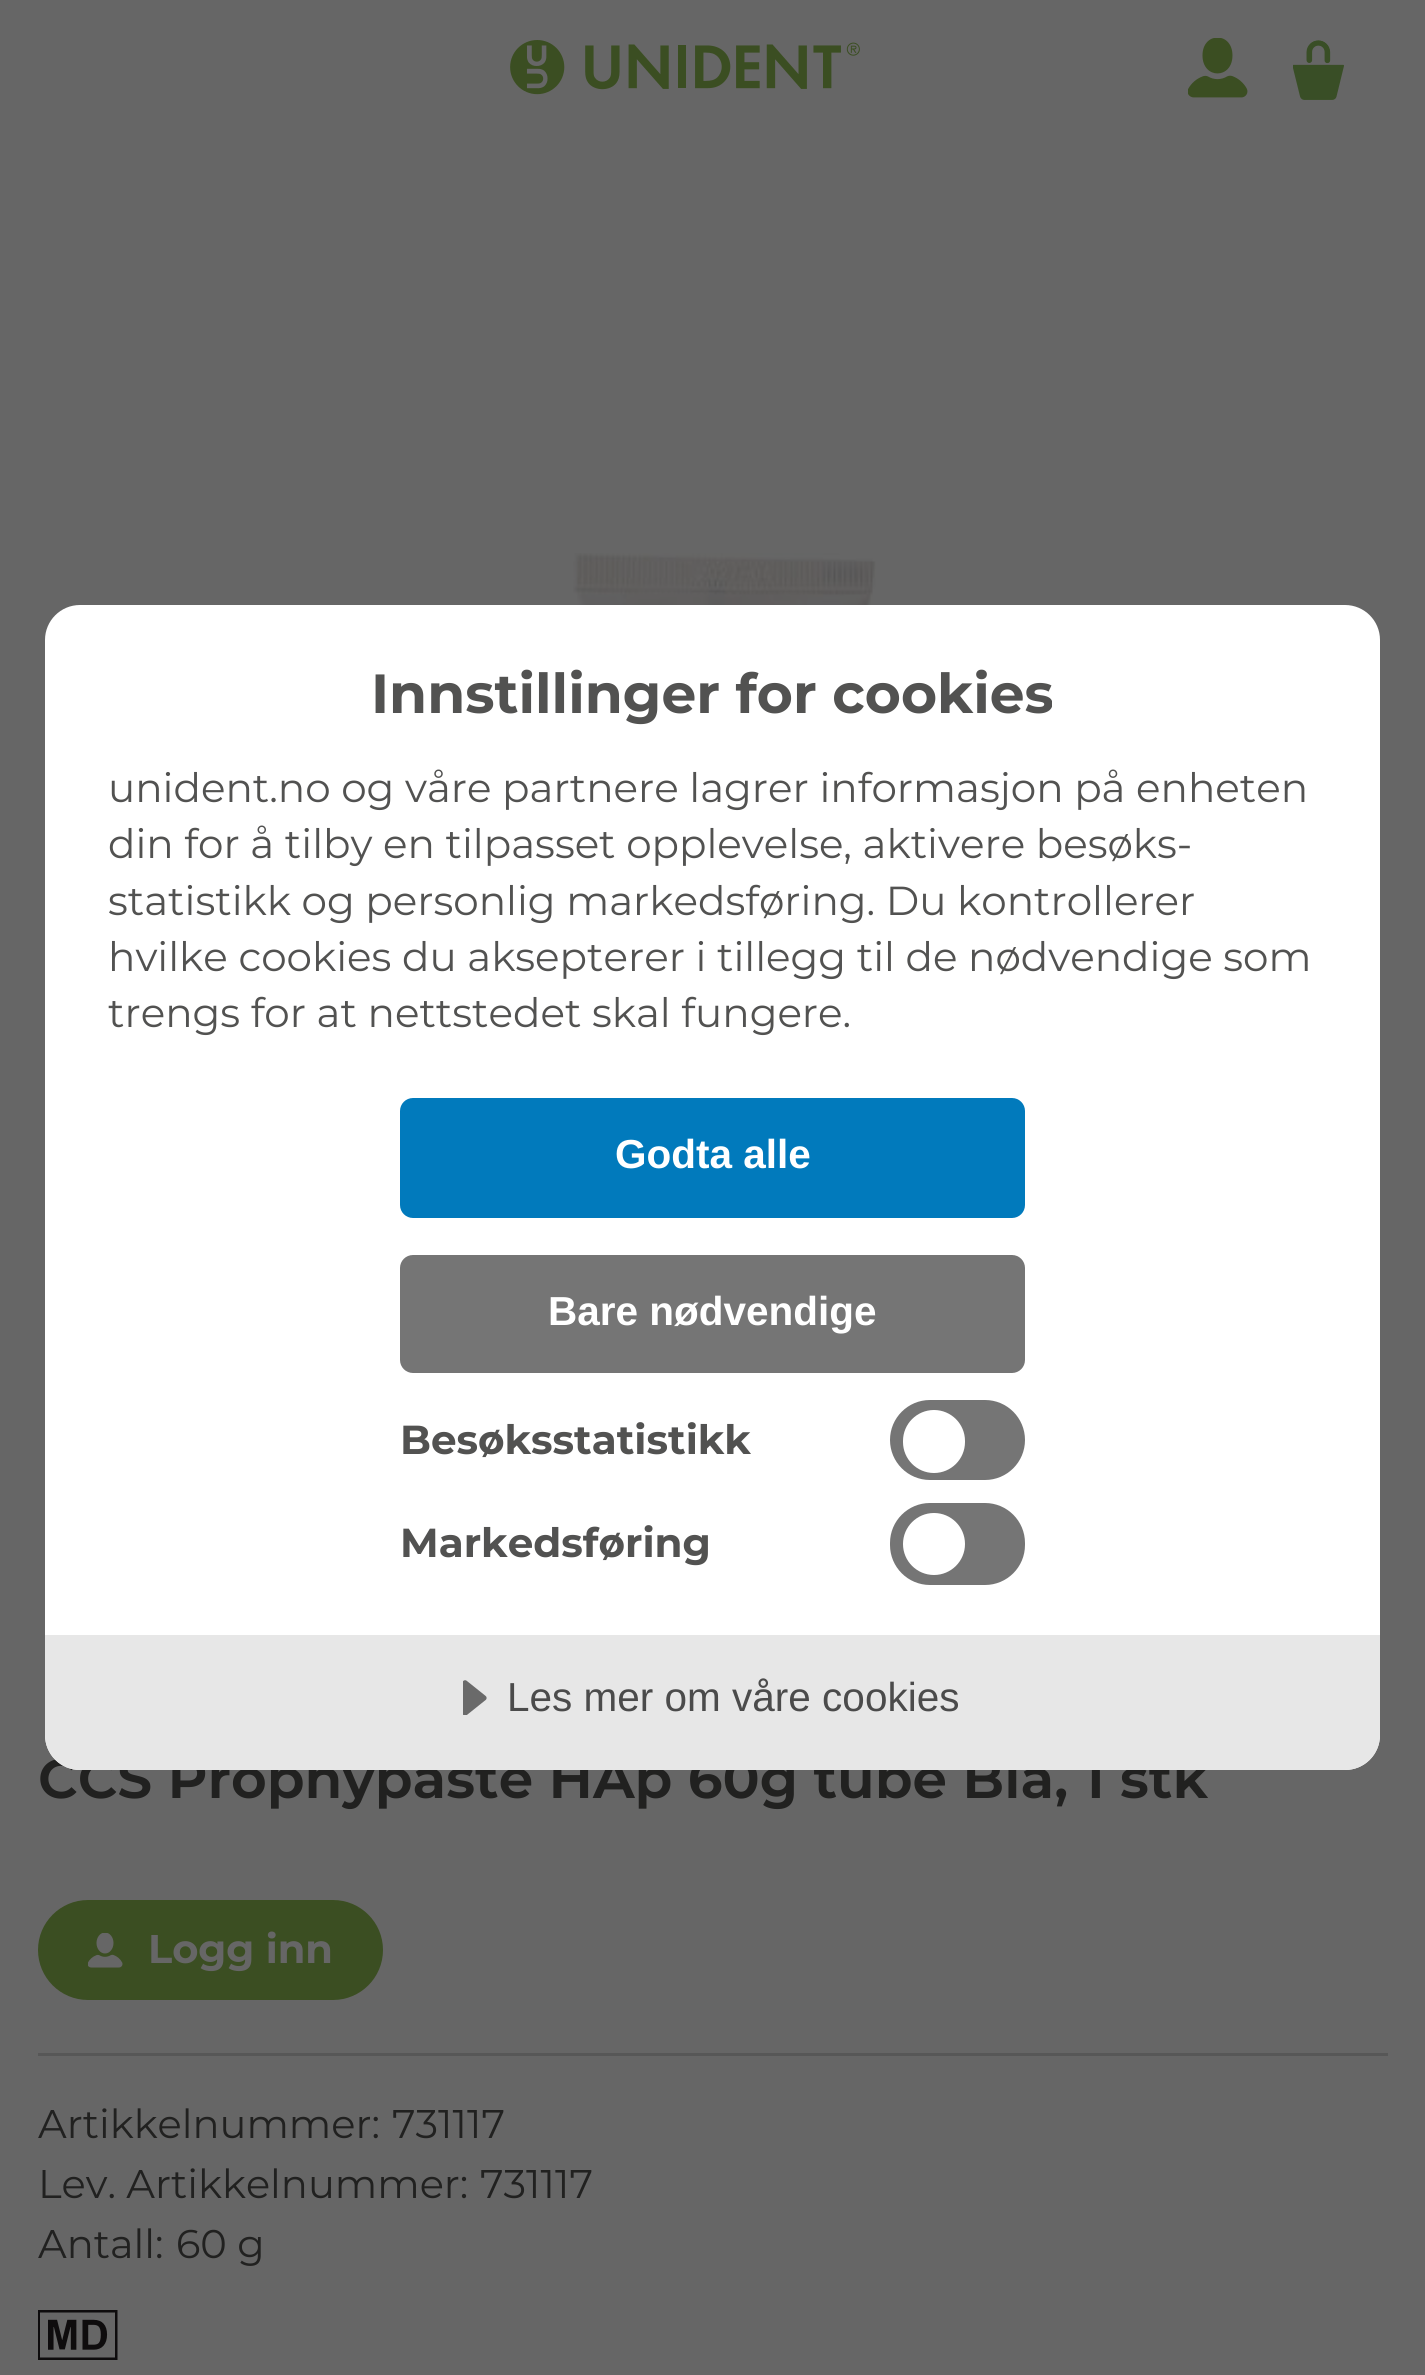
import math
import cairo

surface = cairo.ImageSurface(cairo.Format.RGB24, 1425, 2375)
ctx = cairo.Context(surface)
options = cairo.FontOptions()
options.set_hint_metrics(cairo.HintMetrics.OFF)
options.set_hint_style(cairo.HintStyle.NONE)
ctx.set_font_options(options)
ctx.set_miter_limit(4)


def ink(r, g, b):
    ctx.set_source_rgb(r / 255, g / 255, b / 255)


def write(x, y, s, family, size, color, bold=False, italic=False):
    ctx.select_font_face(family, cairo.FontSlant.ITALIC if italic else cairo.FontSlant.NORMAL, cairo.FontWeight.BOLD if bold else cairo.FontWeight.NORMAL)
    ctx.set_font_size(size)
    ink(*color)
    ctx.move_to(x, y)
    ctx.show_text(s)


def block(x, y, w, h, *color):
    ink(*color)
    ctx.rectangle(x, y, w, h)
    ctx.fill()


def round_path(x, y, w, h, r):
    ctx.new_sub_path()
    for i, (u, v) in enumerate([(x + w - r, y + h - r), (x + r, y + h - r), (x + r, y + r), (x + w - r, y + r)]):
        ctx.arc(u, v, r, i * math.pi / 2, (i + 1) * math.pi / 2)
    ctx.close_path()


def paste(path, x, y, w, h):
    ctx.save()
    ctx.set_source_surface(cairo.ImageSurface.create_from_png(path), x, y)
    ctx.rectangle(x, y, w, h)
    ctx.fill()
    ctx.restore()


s1 = dict(family="Montserrat SemiBold", size=55, color=(33, 33, 32))
s2 = dict(family="Montserrat", size=55.1, color=(82, 82, 81), bold=True)
s3 = dict(family="Montserrat", size=40.5, color=(82, 82, 81))
s4 = dict(family="Liberation Sans", size=40.5, color=(255, 255, 255), bold=True)
s5 = dict(family="Montserrat", size=40.5, color=(82, 82, 81), bold=True)
s6 = dict(family="Liberation Sans", size=40.5, color=(75, 75, 75))
s7 = dict(family="Montserrat", size=40, color=(102, 102, 102), bold=True)
s8 = dict(family="Montserrat", size=40, color=(33, 33, 32))

ink(102, 102, 102)
ctx.paint()
paste("pic1.png", 510, 40, 350, 55)
paste("pic2.png", 1188, 38, 60, 60)
paste("pic3.png", 1293, 40, 51, 60)
write(38, 1798, "CCS Prophypaste HAp 60g tube Blå, 1 stk", **s1)
ink(255, 255, 255)
round_path(45, 605, 1335, 1165, 35)
ctx.fill()
write(371, 713, "Innstillinger for cookies", **s2)
write(108, 802, "unident.no og våre partnere lagrer informasjon på enheten", **s3)
write(108, 858, "din for å tilby en tilpasset opplevelse, aktivere besøks-", **s3)
write(108, 915, "statistikk og personlig markedsføring. Du kontrollerer", **s3)
write(108, 971, "hvilke cookies du aksepterer i tillegg til de nødvendige som", **s3)
write(108, 1027, "trengs for at nettstedet skal fungere.", **s3)
ink(1, 122, 188)
round_path(400, 1098, 625, 120, 13)
ctx.fill()
write(615, 1168, "Godta alle", **s4)
ink(117, 117, 117)
round_path(400, 1255, 625, 118, 13)
ctx.fill()
write(548, 1325, "Bare nødvendige", **s4)
write(400, 1454, "Besøksstatistikk", **s5)
ink(117, 117, 117)
round_path(890, 1400, 135, 80, 40)
ctx.fill()
ink(255, 255, 255)
round_path(903, 1410, 62, 63, 31)
ctx.fill()
write(400, 1557, "Markedsføring", **s5)
ink(117, 117, 117)
round_path(890, 1503, 135, 82, 40)
ctx.fill()
ink(255, 255, 255)
ctx.arc(934, 1544, 31, 0, 2 * math.pi)
ctx.fill()
ink(231, 231, 231)
ctx.new_path()
ctx.move_to(45, 1635)
ctx.line_to(1380, 1635)
ctx.line_to(1380, 1735)
ctx.curve_to(1380, 1754.5, 1364.5, 1770, 1345, 1770)
ctx.line_to(80, 1770)
ctx.curve_to(60.5, 1770, 45, 1754.5, 45, 1735)
ctx.close_path()
ctx.fill()
paste("pic4.png", 463, 1680, 24, 35)
write(507, 1711, "Les mer om våre cookies", **s6)
paste("pic5.png", 573, 553, 303, 52)
ink(59, 78, 34)
round_path(38, 1900, 345, 100, 50)
ctx.fill()
paste("pic6.png", 88, 1933, 35, 35)
write(148, 1963, "Logg inn", **s7)
block(38, 2053, 1350, 3, 87, 87, 87)
write(38, 2138, "Artikkelnummer:", **s8)
write(392, 2138, "731117", **s8)
write(38, 2198, "Lev. Artikkelnummer:", **s8)
write(480, 2198, "731117", **s8)
write(38, 2258, "Antall:", **s8)
write(176, 2258, "60 g", **s8)
paste("pic7.png", 38, 2310, 80, 50)
surface.write_to_png("screenshot.png")
